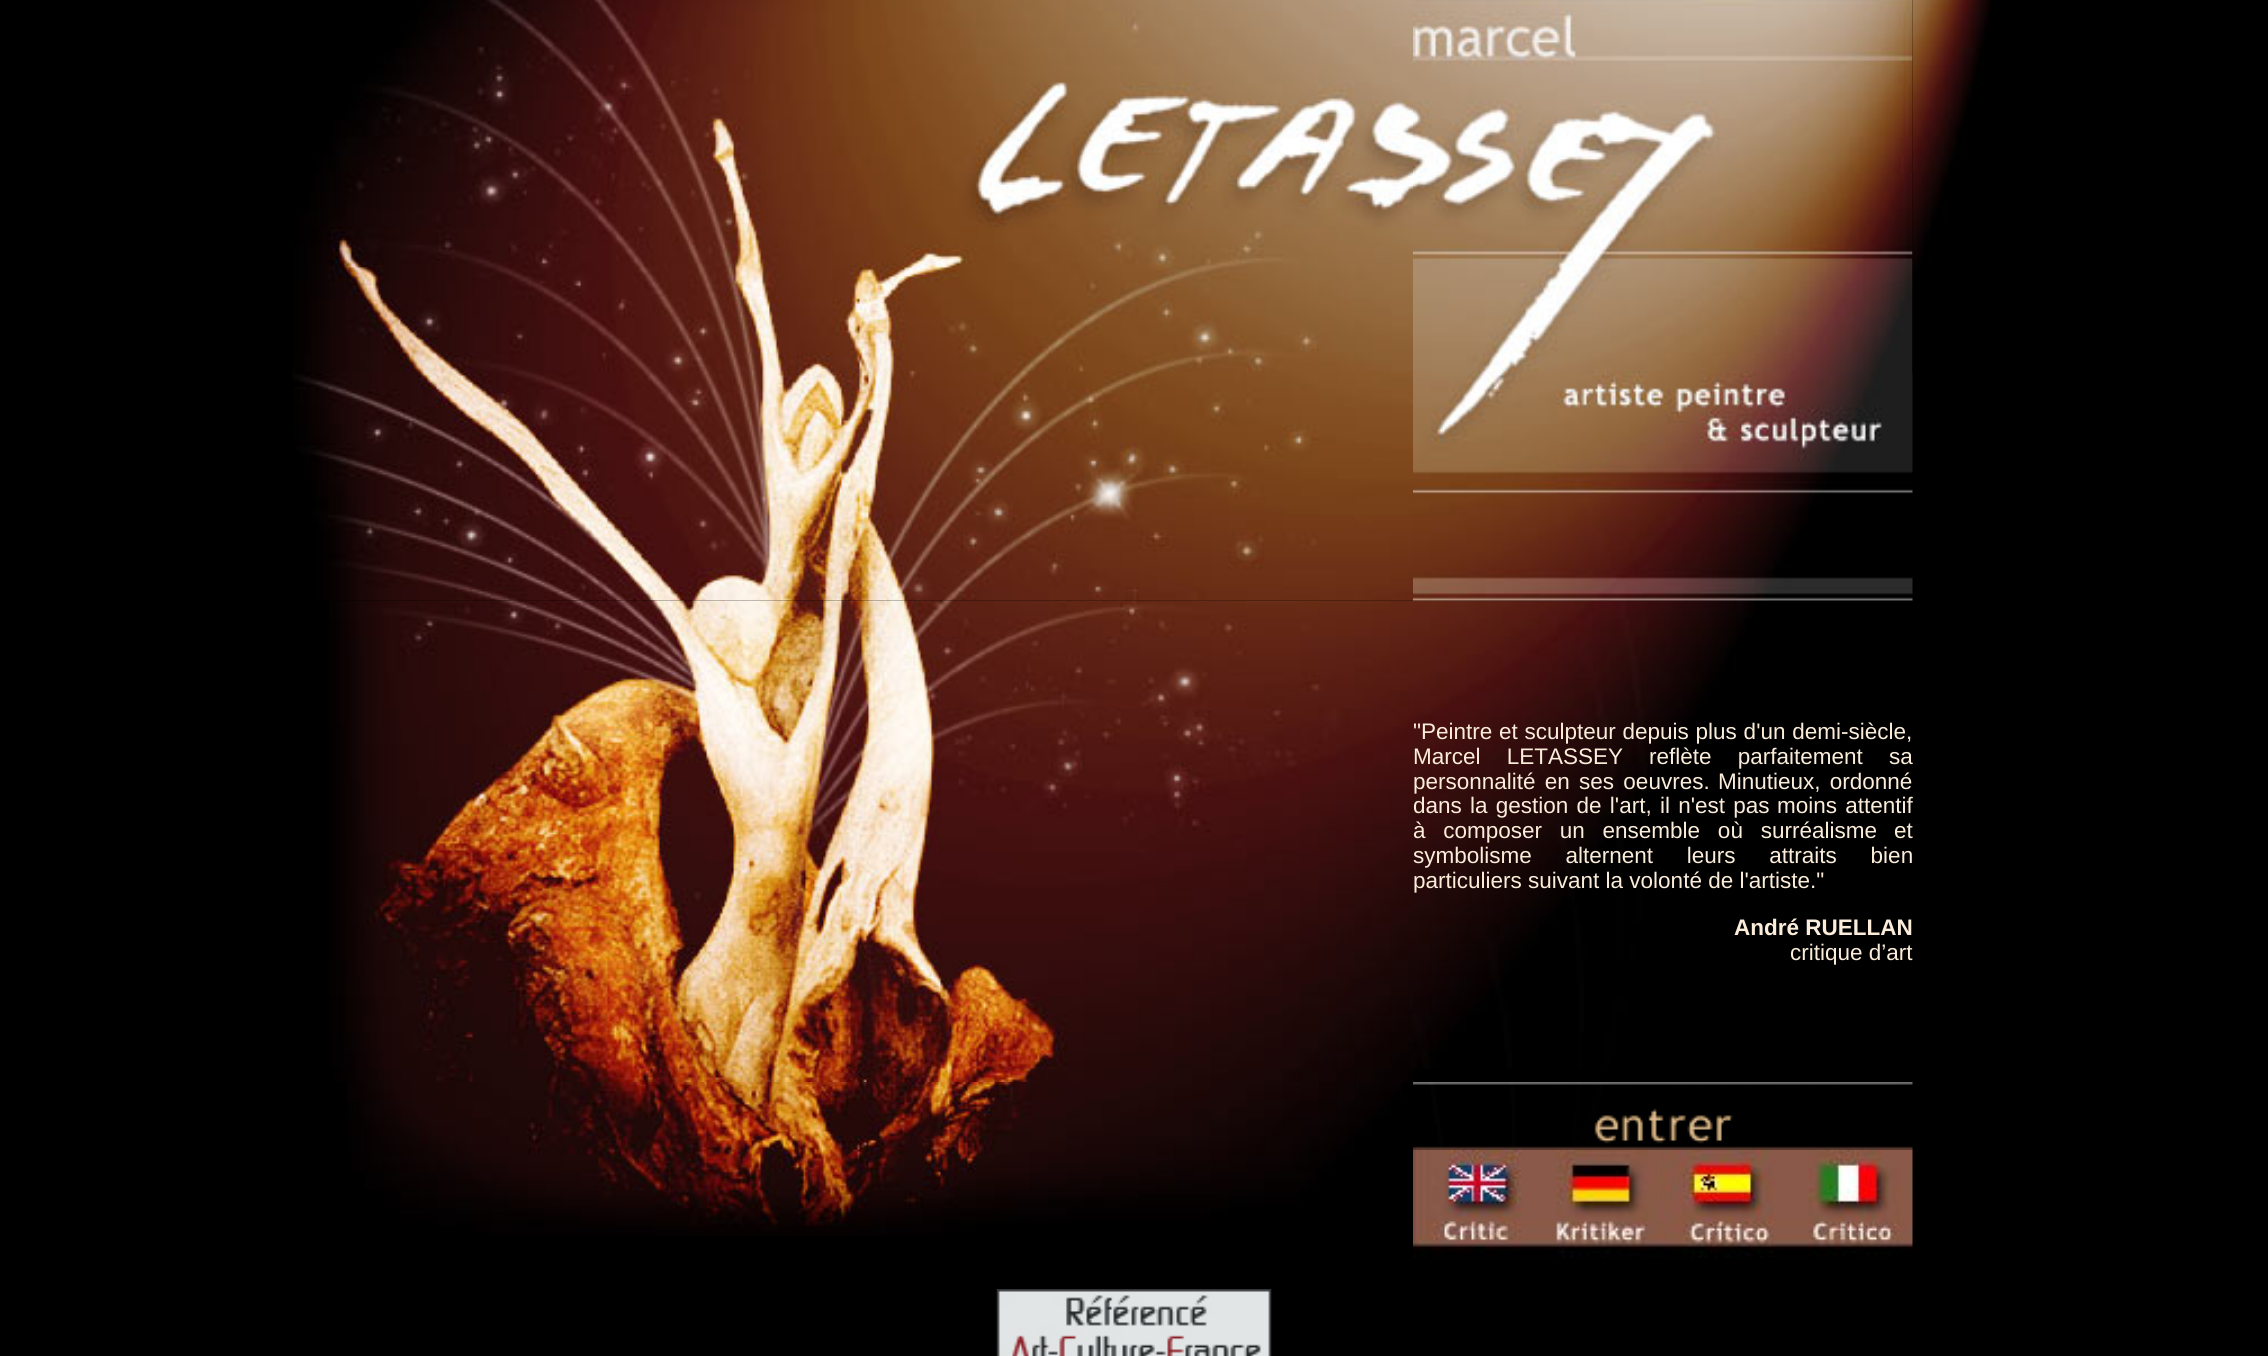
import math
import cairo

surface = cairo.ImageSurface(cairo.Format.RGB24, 2268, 1356)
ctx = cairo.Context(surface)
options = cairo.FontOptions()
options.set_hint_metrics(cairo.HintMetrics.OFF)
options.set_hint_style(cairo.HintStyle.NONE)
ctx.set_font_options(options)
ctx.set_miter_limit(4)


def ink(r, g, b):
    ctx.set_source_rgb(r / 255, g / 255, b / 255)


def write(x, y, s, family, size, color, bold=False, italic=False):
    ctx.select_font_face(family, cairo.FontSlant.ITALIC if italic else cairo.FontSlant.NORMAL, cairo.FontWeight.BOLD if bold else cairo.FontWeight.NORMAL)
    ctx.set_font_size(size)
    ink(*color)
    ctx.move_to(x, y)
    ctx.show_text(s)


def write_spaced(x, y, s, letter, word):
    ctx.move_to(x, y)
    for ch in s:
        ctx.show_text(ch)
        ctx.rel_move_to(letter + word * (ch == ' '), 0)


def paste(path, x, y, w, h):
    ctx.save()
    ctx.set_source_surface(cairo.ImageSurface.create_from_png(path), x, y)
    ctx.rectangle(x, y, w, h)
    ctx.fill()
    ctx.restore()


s1 = dict(family="Liberation Sans", size=22.5, color=(251, 237, 218))
s2 = dict(family="Liberation Sans", size=22.5, color=(251, 237, 218), bold=True)

ink(0, 0, 0)
ctx.paint()
paste("pic1.png", 292, 0, 1121, 601)
paste("pic5.png", 1413, 600, 342, 469)
paste("pic2.png", 1413, 0, 500, 601)
paste("pic3.png", 1912, 0, 79, 373)
paste("pic4.png", 329, 600, 1084, 482)
write(1413, 739, "\"Peintre", **s1)
write_spaced(1499, 739, "et sculpteur depuis plus d'un demi-siècle,", 0, 0.5)
write_spaced(1413, 764, "Marcel LETASSEY", 0, 20)
write_spaced(1649, 764, "reflète parfaitement sa", 0, 20)
write_spaced(1413, 789, "personnalité en ses oeuvres.", 0, 3)
write_spaced(1718, 789, "Minutieux, ordonné", 0, 3)
write_spaced(1413, 813, "dans la gestion de l'art, il n'est pas", 0, 2)
write_spaced(1777, 813, "moins attentif", 0, 2)
write_spaced(1413, 838, "à composer un ensemble où surréalisme", 0, 11.5)
write(1894, 838, "et", **s1)
write_spaced(1413, 863, "symbolisme alternent leurs attraits bien", 0, 27.5)
write(1413, 888, "particuliers suivant la volonté de l'artiste.\"", **s1)
write(1734, 935, "André RUELLAN", **s2)
write(1790, 960, "critique d’art", **s1)
paste("pic6.png", 347, 1082, 1056, 154)
paste("pic7.png", 1413, 1082, 500, 68)
paste("pic8.png", 1413, 1149, 500, 109)
paste("pic9.png", 996, 1289, 276, 67)
surface.write_to_png("screenshot.png")
